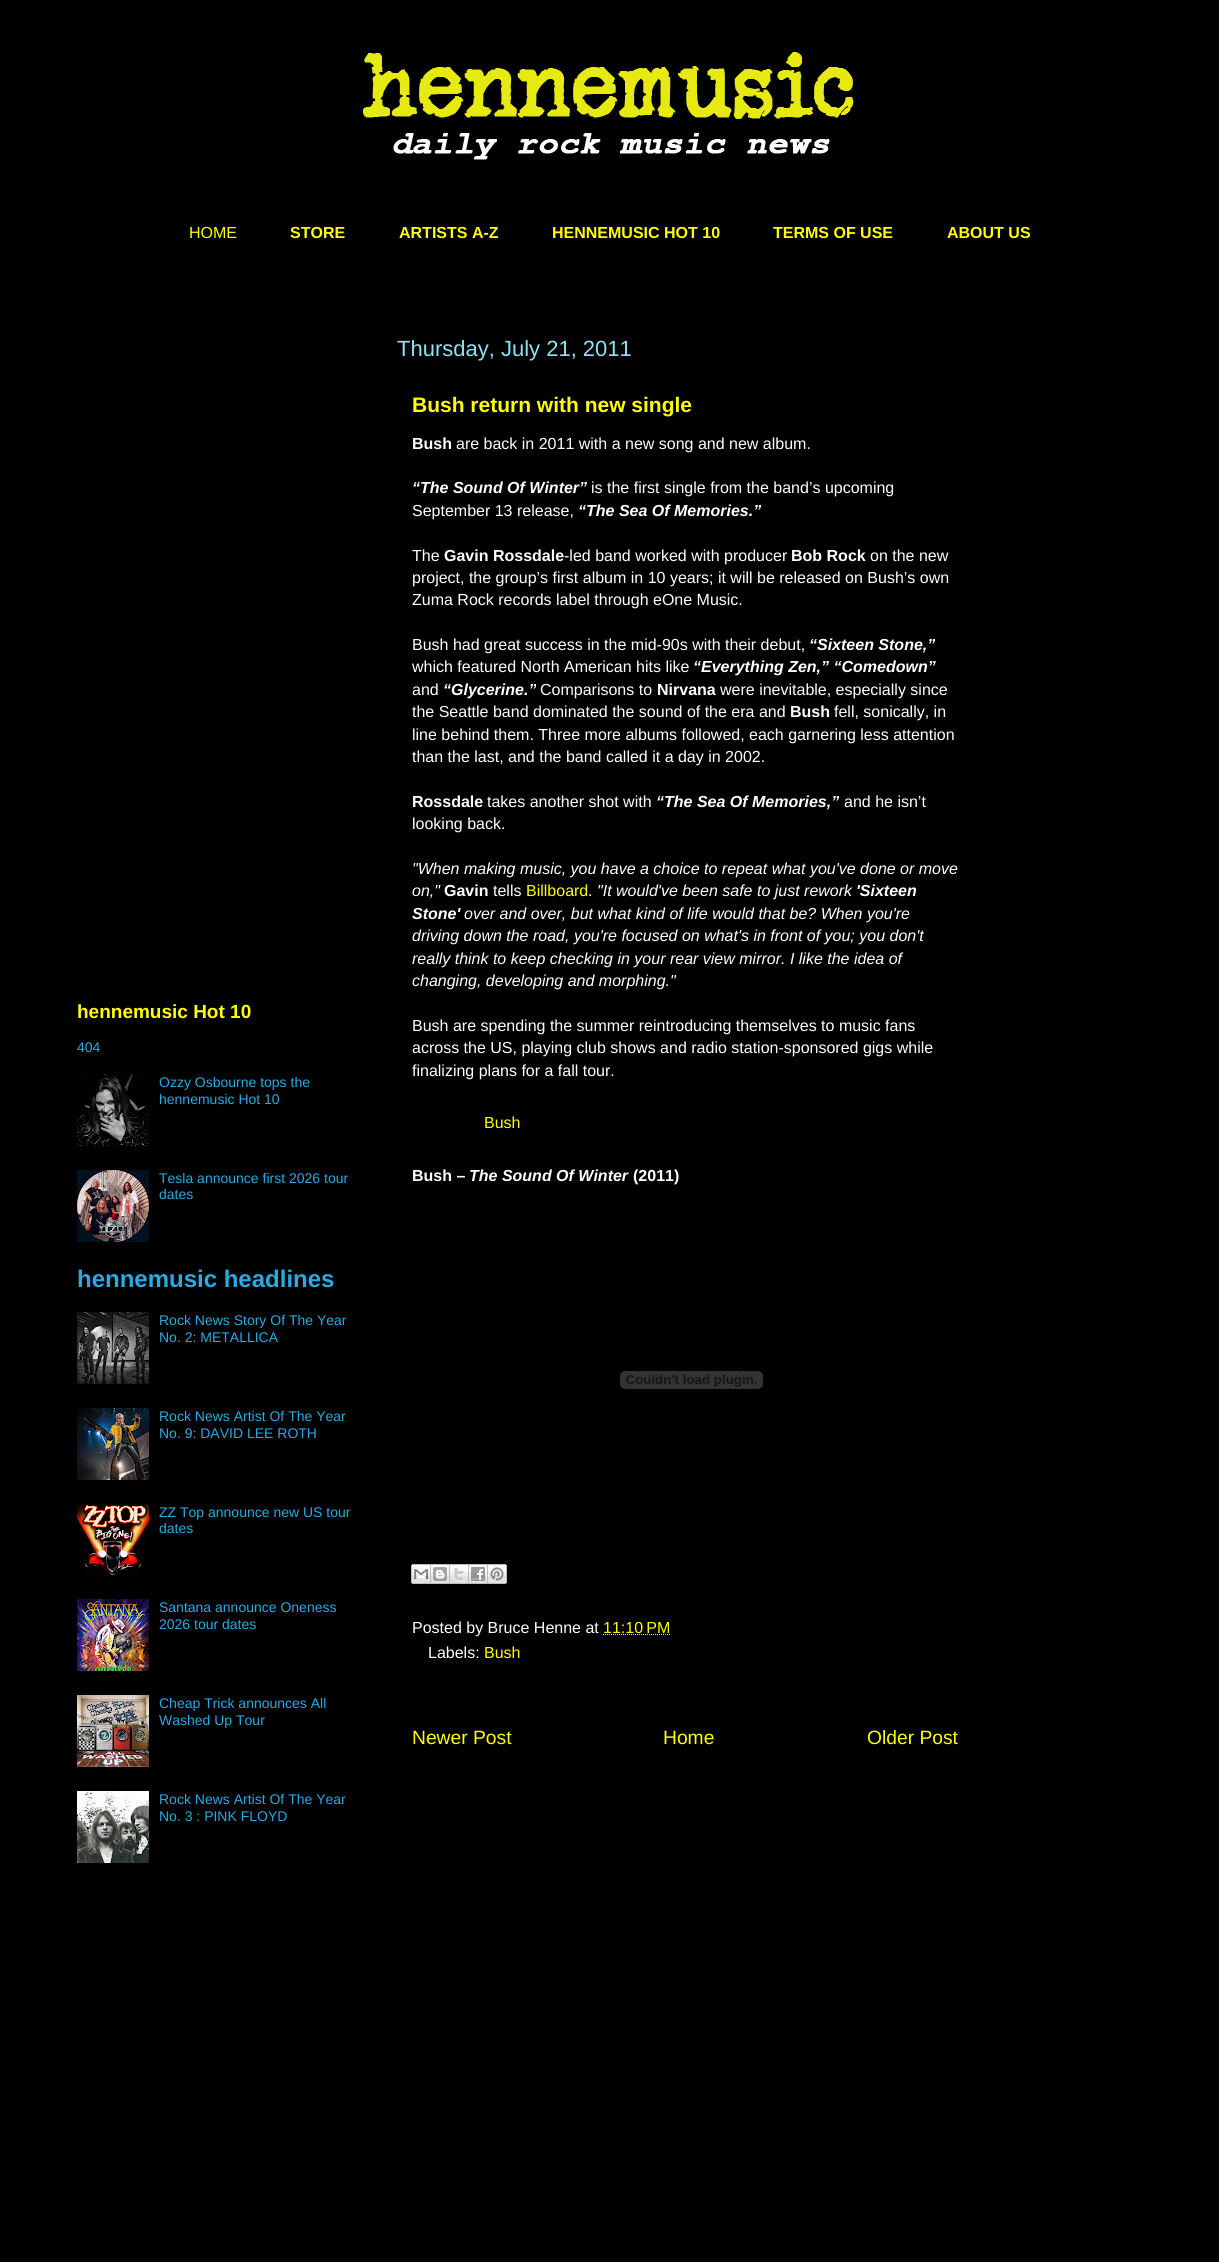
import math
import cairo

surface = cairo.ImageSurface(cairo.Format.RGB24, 1219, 2262)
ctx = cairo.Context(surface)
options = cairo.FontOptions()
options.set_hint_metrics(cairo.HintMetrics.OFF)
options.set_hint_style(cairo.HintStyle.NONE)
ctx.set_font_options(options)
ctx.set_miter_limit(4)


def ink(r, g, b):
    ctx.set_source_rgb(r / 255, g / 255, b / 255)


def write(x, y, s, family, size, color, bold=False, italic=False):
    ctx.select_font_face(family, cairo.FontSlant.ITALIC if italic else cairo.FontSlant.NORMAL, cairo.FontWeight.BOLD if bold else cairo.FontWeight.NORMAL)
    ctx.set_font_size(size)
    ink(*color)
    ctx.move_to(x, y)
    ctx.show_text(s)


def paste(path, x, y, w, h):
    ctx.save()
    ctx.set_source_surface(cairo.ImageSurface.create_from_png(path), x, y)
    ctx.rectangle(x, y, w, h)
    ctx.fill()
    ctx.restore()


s1 = dict(family="Liberation Sans", size=16, color=(255, 255, 0))
s2 = dict(family="Liberation Sans", size=16, color=(255, 255, 0), bold=True)
s3 = dict(family="Liberation Sans", size=19, color=(255, 255, 0), bold=True)
s4 = dict(family="Liberation Sans", size=14, color=(41, 170, 225))
s5 = dict(family="Liberation Sans", size=24, color=(41, 170, 225), bold=True)
s6 = dict(family="Liberation Sans", size=22, color=(140, 225, 245))
s7 = dict(family="Liberation Sans", size=21, color=(255, 255, 0), bold=True)
s8 = dict(family="Liberation Sans", size=16, color=(255, 255, 255), bold=True)
s9 = dict(family="Liberation Sans", size=16, color=(255, 255, 255))
s10 = dict(family="Liberation Sans", size=16, color=(255, 255, 255), bold=True, italic=True)
s11 = dict(family="Liberation Sans", size=16, color=(255, 255, 255), italic=True)
s12 = dict(family="Liberation Sans", size=19.25, color=(255, 255, 0))

ink(0, 0, 0)
ctx.paint()
paste("pic1.png", 363, 52, 491, 108)
write(189, 238, "HOME", **s1)
write(290, 238, "STORE", **s2)
write(399, 238, "ARTISTS A-Z", **s2)
write(552, 238, "HENNEMUSIC HOT 10", **s2)
write(773, 238, "TERMS OF USE", **s2)
write(947, 238, "ABOUT US", **s2)
write(77, 1018, "hennemusic Hot 10", **s3)
write(77, 1052, "404", **s4)
paste("pic2.png", 77, 1074, 72, 72)
write(159, 1087, "Ozzy Osbourne tops the", **s4)
write(159, 1104, "hennemusic Hot 10", **s4)
paste("pic3.png", 77, 1170, 72, 72)
write(159, 1183, "Tesla announce first 2026 tour", **s4)
write(159, 1199, "dates", **s4)
write(77, 1287, "hennemusic headlines", **s5)
paste("pic4.png", 77, 1312, 72, 72)
write(159, 1325, "Rock News Story Of The Year", **s4)
write(159, 1342, "No. 2: METALLICA", **s4)
paste("pic5.png", 77, 1408, 72, 72)
write(159, 1421, "Rock News Artist Of The Year", **s4)
write(159, 1438, "No. 9: DAVID LEE ROTH", **s4)
paste("pic6.png", 77, 1504, 72, 72)
write(159, 1517, "ZZ Top announce new US tour", **s4)
write(159, 1533, "dates", **s4)
paste("pic7.png", 77, 1599, 72, 72)
write(159, 1612, "Santana announce Oneness", **s4)
write(159, 1629, "2026 tour dates", **s4)
paste("pic8.png", 77, 1695, 72, 72)
write(159, 1708, "Cheap Trick announces All", **s4)
write(159, 1725, "Washed Up Tour", **s4)
paste("pic9.png", 77, 1791, 72, 72)
write(159, 1804, "Rock News Artist Of The Year", **s4)
write(159, 1821, "No. 3 : PINK FLOYD", **s4)
write(397, 356, "Thursday, July 21, 2011", **s6)
write(412, 412, "Bush return with new single", **s7)
write(412, 449, "Bush", **s8)
write(456, 449, "are back in 2011 with a new song and new album.", **s9)
write(412, 493, "“The Sound Of Winter”", **s10)
write(591, 493, "is the first single from the band’s upcoming", **s9)
write(412, 516, "September 13 release,", **s9)
write(578, 516, "“The Sea Of Memories.”", **s10)
write(412, 561, "The", **s9)
write(444, 561, "Gavin Rossdale", **s8)
write(564, 561, "-led band worked with producer", **s9)
write(791, 561, "Bob Rock", **s8)
write(870, 561, "on the new", **s9)
write(412, 583, "project, the group’s first album in 10 years; it will be released on Bush’s own", **s9)
write(412, 605, "Zuma Rock records label through eOne Music.", **s9)
write(412, 650, "Bush had great success in the mid-90s with their debut,", **s9)
write(809, 650, "“Sixteen Stone,”", **s10)
write(412, 672, "which featured North American hits like", **s9)
write(693, 672, "“Everything Zen,” “Comedown”", **s10)
write(412, 695, "and", **s9)
write(443, 695, "“Glycerine.”", **s10)
write(540, 695, "Comparisons to", **s9)
write(657, 695, "Nirvana", **s8)
write(720, 695, "were inevitable, especially since", **s9)
write(412, 717, "the Seattle band dominated the sound of the era and", **s9)
write(790, 717, "Bush", **s8)
write(834, 717, "fell, sonically, in", **s9)
write(412, 740, "line behind them. Three more albums followed, each garnering less attention", **s9)
write(412, 762, "than the last, and the band called it a day in 2002.", **s9)
write(412, 807, "Rossdale", **s8)
write(487, 807, "takes another shot with", **s9)
write(656, 807, "“The Sea Of Memories,”", **s10)
write(844, 807, "and he isn’t", **s9)
write(412, 829, "looking back.", **s9)
write(412, 874, "\"When making music, you have a choice to repeat what you've done or move", **s11)
write(412, 896, "on,\"", **s11)
write(444, 896, "Gavin", **s8)
write(493, 896, "tells", **s9)
write(526, 896, "Billboard", **s1)
write(588, 896, ".", **s9)
write(597, 896, "\"It would've been safe to just rework", **s11)
write(856, 896, "'Sixteen", **s10)
write(412, 919, "Stone'", **s10)
write(464, 919, "over and over, but what kind of life would that be? When you're", **s11)
write(412, 941, "driving down the road, you're focused on what's in front of you; you don't", **s11)
write(412, 964, "really think to keep checking in your rear view mirror. I like the idea of", **s11)
write(412, 986, "changing, developing and morphing.\"", **s11)
write(412, 1031, "Bush are spending the summer reintroducing themselves to music fans", **s9)
write(412, 1053, "across the US, playing club shows and radio station-sponsored gigs while", **s9)
write(412, 1076, "finalizing plans for a fall tour.", **s9)
write(484, 1128, "Bush", **s1)
write(412, 1181, "Bush –", **s8)
write(469, 1181, "The Sound Of Winter", **s10)
write(633, 1181, "(2011)", **s8)
paste("pic10.png", 620, 1371, 143, 18)
paste("pic11.png", 411, 1564, 20, 20)
paste("pic12.png", 431, 1564, 19, 20)
paste("pic13.png", 450, 1564, 19, 20)
paste("pic14.png", 469, 1564, 19, 20)
paste("pic15.png", 488, 1564, 19, 20)
write(412, 1633, "Posted by Bruce Henne at", **s9)
write(603, 1633, "11:10 PM", **s1)
ctx.new_path()
ctx.move_to(603, 1634.5)
ctx.line_to(670, 1634.5)
ctx.set_line_width(1)
ctx.set_dash([1, 1])
ctx.stroke()
write(428, 1658, "Labels:", **s9)
write(484, 1658, "Bush", **s1)
write(412, 1744, "Newer Post", **s12)
write(663, 1744, "Home", **s12)
write(867, 1744, "Older Post", **s12)
surface.write_to_png("screenshot.png")
